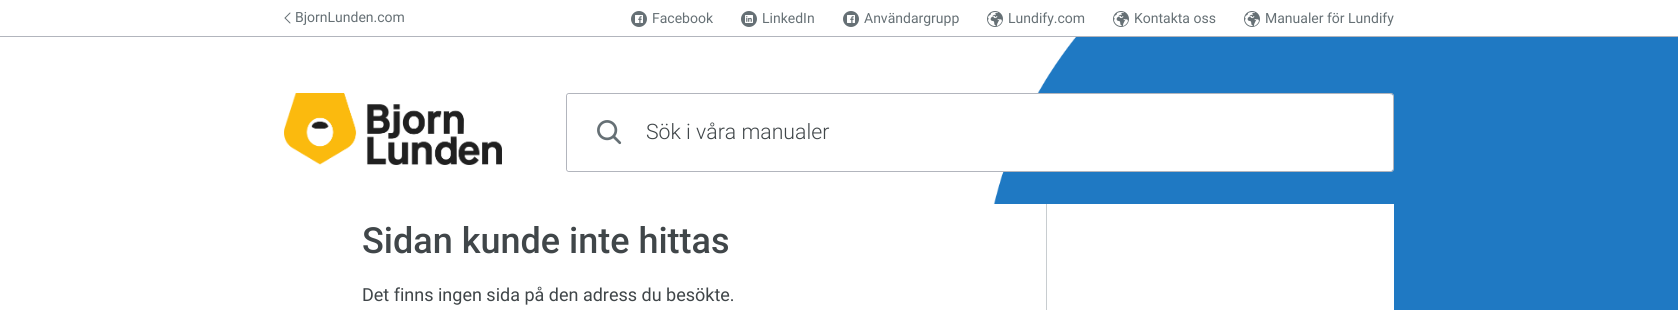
import math
import cairo

surface = cairo.ImageSurface(cairo.Format.RGB24, 1678, 310)
ctx = cairo.Context(surface)
options = cairo.FontOptions()
options.set_hint_metrics(cairo.HintMetrics.OFF)
options.set_hint_style(cairo.HintStyle.NONE)
ctx.set_font_options(options)
ctx.set_miter_limit(4)


def ink(r, g, b):
    ctx.set_source_rgb(r / 255, g / 255, b / 255)


def write(x, y, s, family, size, color, bold=False, italic=False):
    ctx.select_font_face(family, cairo.FontSlant.ITALIC if italic else cairo.FontSlant.NORMAL, cairo.FontWeight.BOLD if bold else cairo.FontWeight.NORMAL)
    ctx.set_font_size(size)
    ink(*color)
    ctx.move_to(x, y)
    ctx.show_text(s)


def block(x, y, w, h, *color):
    ink(*color)
    ctx.rectangle(x, y, w, h)
    ctx.fill()


def round_path(x, y, w, h, r):
    ctx.new_sub_path()
    for i, (u, v) in enumerate([(x + w - r, y + h - r), (x + r, y + h - r), (x + r, y + r), (x + w - r, y + r)]):
        ctx.arc(u, v, r, i * math.pi / 2, (i + 1) * math.pi / 2)
    ctx.close_path()


def paste(path, x, y, w, h):
    ctx.save()
    ctx.set_source_surface(cairo.ImageSurface.create_from_png(path), x, y)
    ctx.rectangle(x, y, w, h)
    ctx.fill()
    ctx.restore()


s1 = dict(family="Roboto", size=14, color=(102, 112, 117))
s2 = dict(family="Roboto Light", size=21.25, color=(64, 70, 73))
s3 = dict(family="Roboto Medium", size=36, color=(64, 70, 73))
s4 = dict(family="Roboto", size=18, color=(64, 70, 73))

ink(255, 255, 255)
ctx.paint()
block(0, 36, 1678, 1, 178, 181, 189)
ctx.new_path()
ctx.move_to(290, 13)
ctx.line_to(285, 18)
ctx.line_to(290, 23)
ink(102, 112, 117)
ctx.set_line_width(1)
ctx.set_line_cap(cairo.LineCap.ROUND)
ctx.stroke()
write(295, 22, "BjornLunden.com", **s1)
paste("pic1.png", 631, 11, 16, 16)
write(652, 23, "Facebook", **s1)
paste("pic2.png", 741, 11, 16, 16)
write(762, 23, "LinkedIn", **s1)
paste("pic1.png", 843, 11, 16, 16)
write(864, 23, "Användargrupp", **s1)
paste("pic3.png", 987, 11, 16, 16)
write(1008, 23, "Lundify.com", **s1)
paste("pic3.png", 1113, 11, 16, 16)
write(1134, 23, "Kontakta oss", **s1)
paste("pic3.png", 1244, 11, 16, 16)
write(1265, 23, "Manualer för Lundify", **s1)
paste("pic6.png", 0, 37, 1678, 273)
paste("pic4.png", 284, 93, 218, 72)
round_path(566.5, 93.5, 827, 78, 2.5)
ink(178, 181, 189)
ctx.set_line_cap(cairo.LineCap.BUTT)
ctx.stroke()
ink(255, 255, 255)
round_path(567, 94, 826, 77, 3)
ctx.fill()
paste("pic5.png", 597, 120, 25, 25)
ctx.set_fill_rule(cairo.FillRule.EVEN_ODD)
ctx.new_path()
ctx.move_to(570, 94)
ctx.line_to(1390, 94)
ctx.curve_to(1392, 94, 1393, 95, 1393, 97)
ctx.line_to(1393, 168)
ctx.curve_to(1393, 170, 1392, 171, 1390, 171)
ctx.line_to(570, 171)
ctx.curve_to(568, 171, 567, 170, 567, 168)
ctx.line_to(567, 97)
ctx.curve_to(567, 95, 568, 94, 570, 94)
ctx.close_path()
ctx.move_to(570, 94)
ctx.line_to(1390, 94)
ctx.curve_to(1391, 94, 1392, 95, 1392, 97)
ctx.line_to(1392, 168)
ctx.curve_to(1392, 169, 1391, 170, 1390, 170)
ctx.line_to(570, 170)
ctx.curve_to(569, 170, 568, 169, 568, 168)
ctx.line_to(568, 97)
ctx.curve_to(568, 95, 569, 94, 570, 94)
ctx.close_path()
ctx.fill()
write(646, 139, "Sök i våra manualer", **s2)
block(982, 204, 412, 106, 255, 255, 255)
write(362, 253, "Sidan kunde inte hittas", **s3)
write(362, 301, "Det finns ingen sida på den adress du besökte.", **s4)
block(1046, 204, 1, 106, 200, 205, 208)
surface.write_to_png("screenshot.png")
